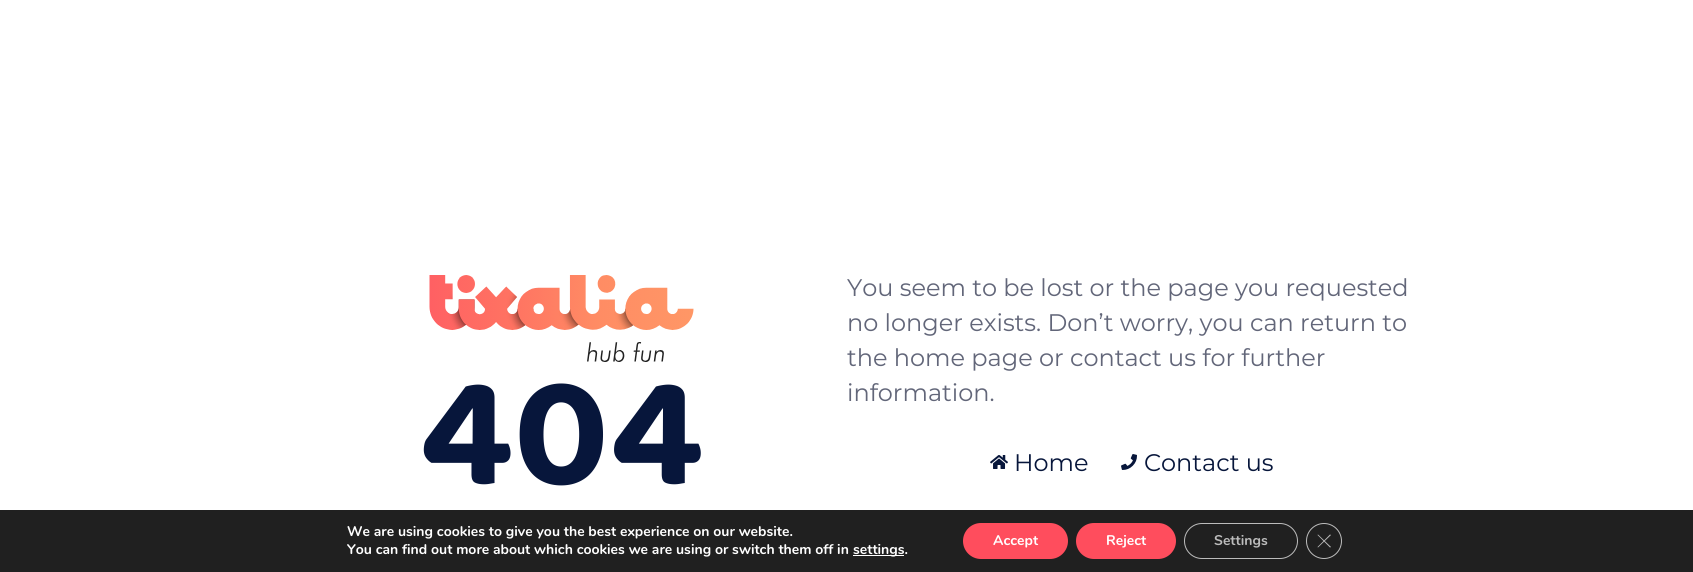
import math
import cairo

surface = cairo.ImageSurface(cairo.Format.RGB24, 1693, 572)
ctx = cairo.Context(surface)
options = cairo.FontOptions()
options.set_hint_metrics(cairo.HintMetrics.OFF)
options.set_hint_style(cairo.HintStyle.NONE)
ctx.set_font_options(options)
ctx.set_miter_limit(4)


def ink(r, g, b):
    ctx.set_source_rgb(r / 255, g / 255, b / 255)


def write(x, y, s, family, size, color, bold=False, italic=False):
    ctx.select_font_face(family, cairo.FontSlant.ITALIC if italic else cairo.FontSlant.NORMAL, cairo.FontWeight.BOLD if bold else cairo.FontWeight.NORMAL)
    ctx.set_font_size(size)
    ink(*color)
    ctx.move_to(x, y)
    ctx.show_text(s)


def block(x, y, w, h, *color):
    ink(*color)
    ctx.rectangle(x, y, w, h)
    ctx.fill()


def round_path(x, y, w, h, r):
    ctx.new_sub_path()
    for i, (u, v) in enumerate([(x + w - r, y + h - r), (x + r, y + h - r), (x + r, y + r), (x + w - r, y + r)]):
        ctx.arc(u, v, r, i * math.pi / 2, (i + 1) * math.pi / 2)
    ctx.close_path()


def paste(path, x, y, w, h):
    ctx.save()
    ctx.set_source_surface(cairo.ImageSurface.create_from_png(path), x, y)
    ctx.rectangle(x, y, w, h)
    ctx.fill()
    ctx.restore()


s1 = dict(family="Baloo Da 2", size=160, color=(7, 22, 59), bold=True)
s2 = dict(family="Montserrat", size=24, color=(98, 102, 121))
s3 = dict(family="Montserrat", size=24, color=(7, 22, 59))
s4 = dict(family="Nunito", size=14, color=(255, 255, 255), bold=True)
s5 = dict(family="Nunito", size=14, color=(188, 188, 188), bold=True)

ink(255, 255, 255)
ctx.paint()
paste("pic1.png", 429, 275, 265, 87)
write(419, 483, "404", **s1)
write(847, 296, "You seem to be lost or the page you requested", **s2)
write(847, 331, "no longer exists. Don’t worry, you can return to", **s2)
write(847, 366, "the home page or contact us for further", **s2)
write(847, 401, "information.", **s2)
paste("pic2.png", 990, 455, 18, 14)
write(1014, 471, "Home", **s3)
paste("pic3.png", 1121, 454, 16, 16)
write(1144, 471, "Contact us", **s3)
block(0, 510, 1693, 62, 32, 32, 32)
write(347, 536, "We are using cookies to give you the best experience on our website.", **s4)
write(347, 554, "You can find out more about which cookies we are using or switch them off in", **s4)
block(853, 555, 51, 1, 255, 255, 255)
write(853, 554, "settings.", **s4)
ink(255, 77, 93)
round_path(963, 523, 105, 36, 18)
ctx.fill()
write(993, 545, "Accept", **s4)
ink(255, 77, 93)
round_path(1076, 523, 100, 36, 18)
ctx.fill()
write(1106, 545, "Reject", **s4)
round_path(1184.5, 523.5, 113, 35, 17.5)
ink(188, 188, 188)
ctx.set_line_width(1)
ctx.stroke()
write(1214, 545, "Settings", **s5)
ctx.new_path()
ctx.arc(1324, 541, 17.5, 0, 2 * math.pi)
ctx.stroke()
ctx.new_path()
ctx.move_to(1330, 534.5)
ctx.line_to(1331, 535)
ctx.line_to(1318, 547.5)
ctx.line_to(1317.5, 547)
ctx.close_path()
ctx.fill()
ctx.new_path()
ctx.move_to(1317.5, 535)
ctx.line_to(1318, 534.5)
ctx.line_to(1331, 547)
ctx.line_to(1330, 547.5)
ctx.close_path()
ctx.fill()
surface.write_to_png("screenshot.png")
